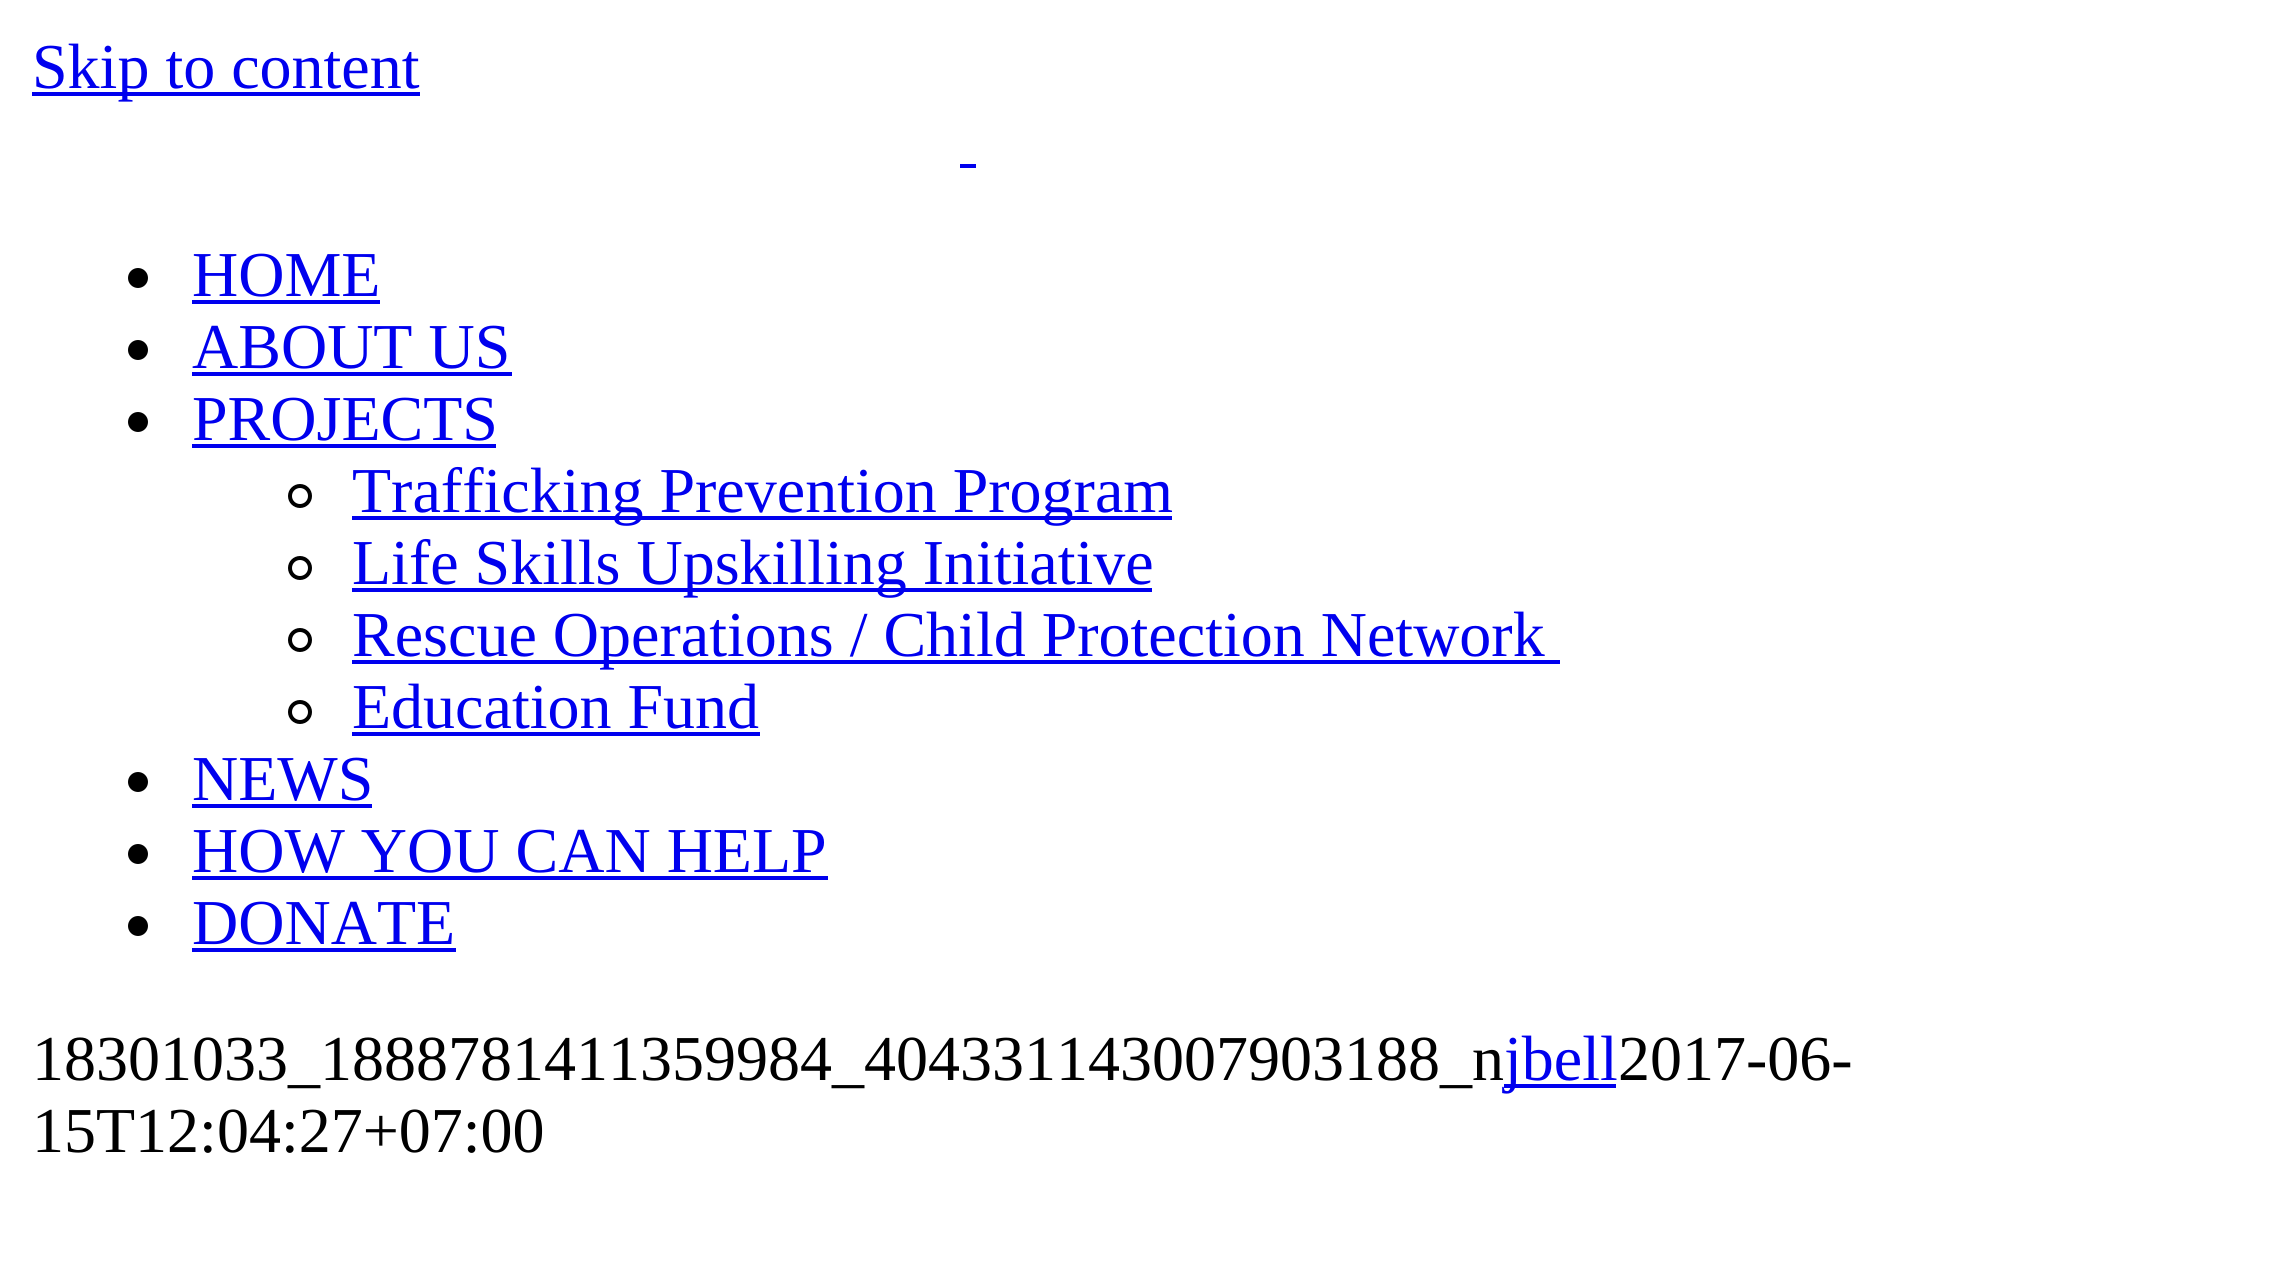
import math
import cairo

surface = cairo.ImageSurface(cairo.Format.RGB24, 2273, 1261)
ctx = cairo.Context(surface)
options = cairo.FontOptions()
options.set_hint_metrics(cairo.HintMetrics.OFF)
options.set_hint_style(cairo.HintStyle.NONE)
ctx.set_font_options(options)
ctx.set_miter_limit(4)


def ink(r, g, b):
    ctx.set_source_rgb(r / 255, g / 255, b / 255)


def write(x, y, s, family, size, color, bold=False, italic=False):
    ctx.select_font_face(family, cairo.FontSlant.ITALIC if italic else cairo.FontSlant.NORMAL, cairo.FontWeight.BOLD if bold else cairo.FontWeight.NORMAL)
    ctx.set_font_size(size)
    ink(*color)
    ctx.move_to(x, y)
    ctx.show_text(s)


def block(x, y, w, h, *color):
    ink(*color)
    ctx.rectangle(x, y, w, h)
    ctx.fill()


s1 = dict(family="Liberation Serif", size=64, color=(0, 0, 238))
s2 = dict(family="Liberation Serif", size=64, color=(0, 0, 0))

ink(255, 255, 255)
ctx.paint()
block(32, 92, 388, 4, 0, 0, 238)
write(32, 88, "Skip to content", **s1)
block(960, 164, 16, 4, 0, 0, 238)
ink(0, 0, 0)
ctx.new_path()
ctx.arc(138, 278, 10, 0, 2 * math.pi)
ctx.fill()
write(192, 296, "HOME", **s1)
block(192, 300, 188, 4, 0, 0, 238)
ink(0, 0, 0)
ctx.new_path()
ctx.arc(138, 350, 10, 0, 2 * math.pi)
ctx.fill()
write(192, 368, "ABOUT US", **s1)
block(192, 372, 320, 4, 0, 0, 238)
ink(0, 0, 0)
ctx.new_path()
ctx.arc(138, 422, 10, 0, 2 * math.pi)
ctx.fill()
write(192, 440, "PROJECTS", **s1)
block(192, 444, 304, 4, 0, 0, 238)
ctx.new_path()
ctx.arc(300, 496, 10, 0, 2 * math.pi)
ink(0, 0, 0)
ctx.set_line_width(4)
ctx.stroke()
block(352, 516, 820, 4, 0, 0, 238)
write(352, 512, "Trafficking Prevention Program", **s1)
ctx.new_path()
ctx.arc(300, 568, 10, 0, 2 * math.pi)
ink(0, 0, 0)
ctx.stroke()
block(352, 588, 800, 4, 0, 0, 238)
write(352, 584, "Life Skills Upskilling Initiative", **s1)
ctx.new_path()
ctx.arc(300, 640, 10, 0, 2 * math.pi)
ink(0, 0, 0)
ctx.stroke()
block(352, 660, 1208, 4, 0, 0, 238)
write(352, 656, "Rescue Operations / Child Protection Network", **s1)
ctx.new_path()
ctx.arc(300, 712, 10, 0, 2 * math.pi)
ink(0, 0, 0)
ctx.stroke()
write(352, 728, "Education Fund", **s1)
block(352, 732, 408, 4, 0, 0, 238)
ink(0, 0, 0)
ctx.new_path()
ctx.arc(138, 782, 10, 0, 2 * math.pi)
ctx.fill()
write(192, 800, "NEWS", **s1)
block(192, 804, 180, 4, 0, 0, 238)
ink(0, 0, 0)
ctx.new_path()
ctx.arc(138, 854, 10, 0, 2 * math.pi)
ctx.fill()
write(192, 872, "HOW YOU CAN HELP", **s1)
block(192, 876, 636, 4, 0, 0, 238)
ink(0, 0, 0)
ctx.new_path()
ctx.arc(138, 926, 10, 0, 2 * math.pi)
ctx.fill()
write(192, 944, "DONATE", **s1)
block(192, 948, 264, 4, 0, 0, 238)
write(32, 1080, "18301033_1888781411359984_404331143007903188_n", **s2)
block(1504, 1084, 112, 4, 0, 0, 238)
write(1504, 1080, "jbell", **s1)
write(1618, 1080, "2017-06-", **s2)
write(32, 1152, "15T12:04:27+07:00", **s2)
surface.write_to_png("screenshot.png")
